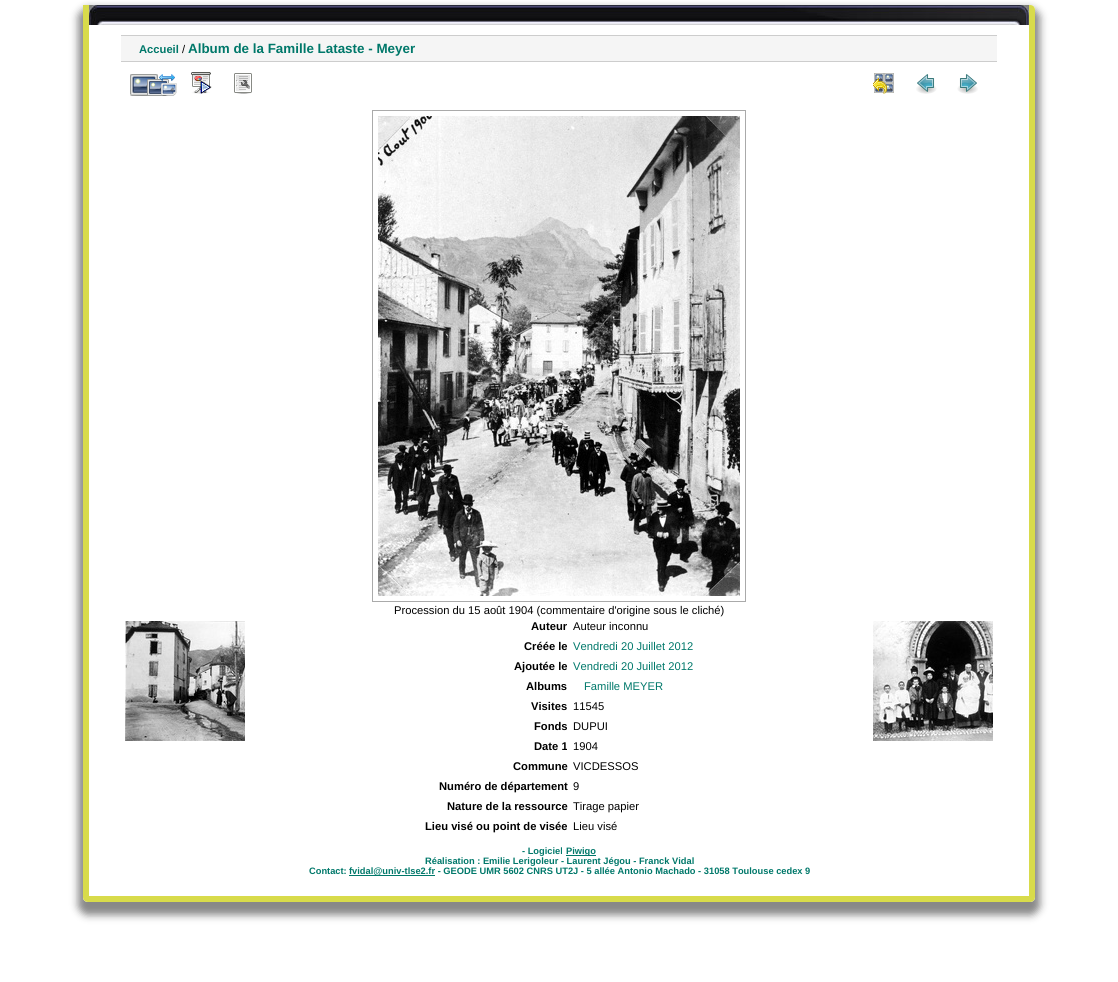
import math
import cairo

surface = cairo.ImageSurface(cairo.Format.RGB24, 1118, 982)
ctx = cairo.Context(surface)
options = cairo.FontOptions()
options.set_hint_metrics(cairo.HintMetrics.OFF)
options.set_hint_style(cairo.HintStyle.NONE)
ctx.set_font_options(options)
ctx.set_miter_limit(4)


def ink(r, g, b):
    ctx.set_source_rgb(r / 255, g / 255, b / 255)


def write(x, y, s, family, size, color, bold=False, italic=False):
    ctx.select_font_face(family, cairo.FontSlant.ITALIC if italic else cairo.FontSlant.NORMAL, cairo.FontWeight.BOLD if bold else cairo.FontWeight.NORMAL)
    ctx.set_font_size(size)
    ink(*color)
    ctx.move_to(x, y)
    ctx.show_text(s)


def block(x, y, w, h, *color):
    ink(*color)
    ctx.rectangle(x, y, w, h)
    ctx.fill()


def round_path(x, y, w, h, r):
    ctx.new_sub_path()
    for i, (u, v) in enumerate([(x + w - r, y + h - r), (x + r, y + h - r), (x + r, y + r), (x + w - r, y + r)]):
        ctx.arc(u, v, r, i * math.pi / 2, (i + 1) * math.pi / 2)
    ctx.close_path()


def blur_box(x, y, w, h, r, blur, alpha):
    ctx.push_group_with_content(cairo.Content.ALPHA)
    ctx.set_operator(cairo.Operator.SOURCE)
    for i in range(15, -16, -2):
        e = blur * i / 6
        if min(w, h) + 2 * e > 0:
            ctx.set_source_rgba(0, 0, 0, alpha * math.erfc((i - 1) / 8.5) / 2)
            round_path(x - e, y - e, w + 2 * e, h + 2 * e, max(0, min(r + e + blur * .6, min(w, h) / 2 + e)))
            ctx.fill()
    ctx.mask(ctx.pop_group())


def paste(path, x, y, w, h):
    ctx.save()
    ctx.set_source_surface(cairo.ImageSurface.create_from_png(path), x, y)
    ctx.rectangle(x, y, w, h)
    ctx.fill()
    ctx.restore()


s1 = dict(family="Liberation Sans", size=11.2, color=(0, 120, 106), bold=True)
s2 = dict(family="Liberation Sans", size=11.2, color=(0, 0, 0))
s3 = dict(family="Liberation Sans", size=13.4, color=(0, 120, 106), bold=True)
s4 = dict(family="Liberation Sans", size=11.2, color=(0, 0, 0), bold=True)
s5 = dict(family="Liberation Sans", size=11.2, color=(0, 120, 106))
s6 = dict(family="Liberation Sans", size=9.3, color=(0, 120, 106), bold=True)

ink(255, 255, 255)
ctx.paint()
ctx.save()
ctx.set_fill_rule(cairo.FillRule.EVEN_ODD)
ctx.new_path()
ctx.move_to(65, 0)
ctx.line_to(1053, 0)
ctx.line_to(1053, 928)
ctx.line_to(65, 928)
ctx.close_path()
ctx.move_to(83, 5)
ctx.line_to(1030, 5)
ctx.curve_to(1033, 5, 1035, 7, 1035, 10)
ctx.line_to(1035, 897)
ctx.curve_to(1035, 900, 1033, 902, 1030, 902)
ctx.line_to(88, 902)
ctx.curve_to(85, 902, 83, 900, 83, 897)
ctx.close_path()
ctx.clip()
ink(136, 136, 136)
blur_box(78, 8, 962, 907, 10, 4, 1)
ctx.restore()
ink(216, 219, 75)
ctx.set_fill_rule(cairo.FillRule.EVEN_ODD)
ctx.new_path()
ctx.move_to(83, 5)
ctx.line_to(1030, 5)
ctx.curve_to(1033, 5, 1035, 7, 1035, 10)
ctx.line_to(1035, 897)
ctx.curve_to(1035, 900, 1033, 902, 1030, 902)
ctx.line_to(88, 902)
ctx.curve_to(85, 902, 83, 900, 83, 897)
ctx.close_path()
ctx.move_to(89, 5)
ctx.line_to(1029, 5)
ctx.line_to(1029, 896)
ctx.line_to(89, 896)
ctx.close_path()
ctx.fill()
paste("pic1.png", 89, 5, 940, 20)
block(121, 36, 876, 25, 245, 245, 245)
block(121, 35, 876, 1, 205, 205, 205)
block(121, 61, 876, 1, 205, 205, 205)
write(139, 53, "Accueil", **s1)
write(182, 53, "/", **s2)
write(188, 53, "Album de la Famille Lataste - Meyer", **s3)
paste("pic2.png", 130, 74, 47, 22)
paste("pic3.png", 191, 72, 21, 22)
paste("pic4.png", 234, 73, 18, 21)
paste("pic5.png", 873, 73, 21, 21)
paste("pic6.png", 916, 74, 21, 20)
paste("pic7.png", 957, 74, 21, 20)
ctx.rectangle(372.5, 110.5, 373, 491)
ink(170, 170, 170)
ctx.set_line_width(1)
ctx.stroke()
paste("pic8.png", 378, 116, 362, 480)
write(394, 614, "Procession du 15 août 1904 (commentaire d'origine sous le cliché)", **s2)
paste("pic9.png", 125, 621, 120, 120)
paste("pic10.png", 873, 621, 120, 120)
write(531, 630, "Auteur", **s4)
write(573, 630, "Auteur inconnu", **s2)
write(524, 650, "Créée le", **s4)
write(573, 650, "Vendredi 20 Juillet 2012", **s5)
write(514, 670, "Ajoutée le", **s4)
write(573, 670, "Vendredi 20 Juillet 2012", **s5)
write(526, 690, "Albums", **s4)
write(584, 690, "Famille MEYER", **s5)
write(531, 710, "Visites", **s4)
write(573, 710, "11545", **s2)
write(534, 730, "Fonds", **s4)
write(573, 730, "DUPUI", **s2)
write(534, 750, "Date 1", **s4)
write(573, 750, "1904", **s2)
write(513, 770, "Commune", **s4)
write(573, 770, "VICDESSOS", **s2)
write(439, 790, "Numéro de département", **s4)
write(573, 790, "9", **s2)
write(447, 810, "Nature de la ressource", **s4)
write(573, 810, "Tirage papier", **s2)
write(425, 830, "Lieu visé ou point de visée", **s4)
write(573, 830, "Lieu visé", **s2)
write(522, 854, "- Logiciel", **s6)
block(566, 855, 30, 1, 0, 120, 106)
write(566, 854, "Piwigo", **s6)
write(425, 864, "Réalisation : Emilie Lerigoleur - Laurent Jégou - Franck Vidal", **s6)
write(309, 874, "Contact:", **s6)
block(349, 875, 86, 1, 0, 120, 106)
write(349, 874, "fvidal@univ-tlse2.fr - GEODE UMR 5602 CNRS UT2J - 5 allée Antonio Machado - 31058 Toulouse cedex 9", **s6)
surface.write_to_png("screenshot.png")
